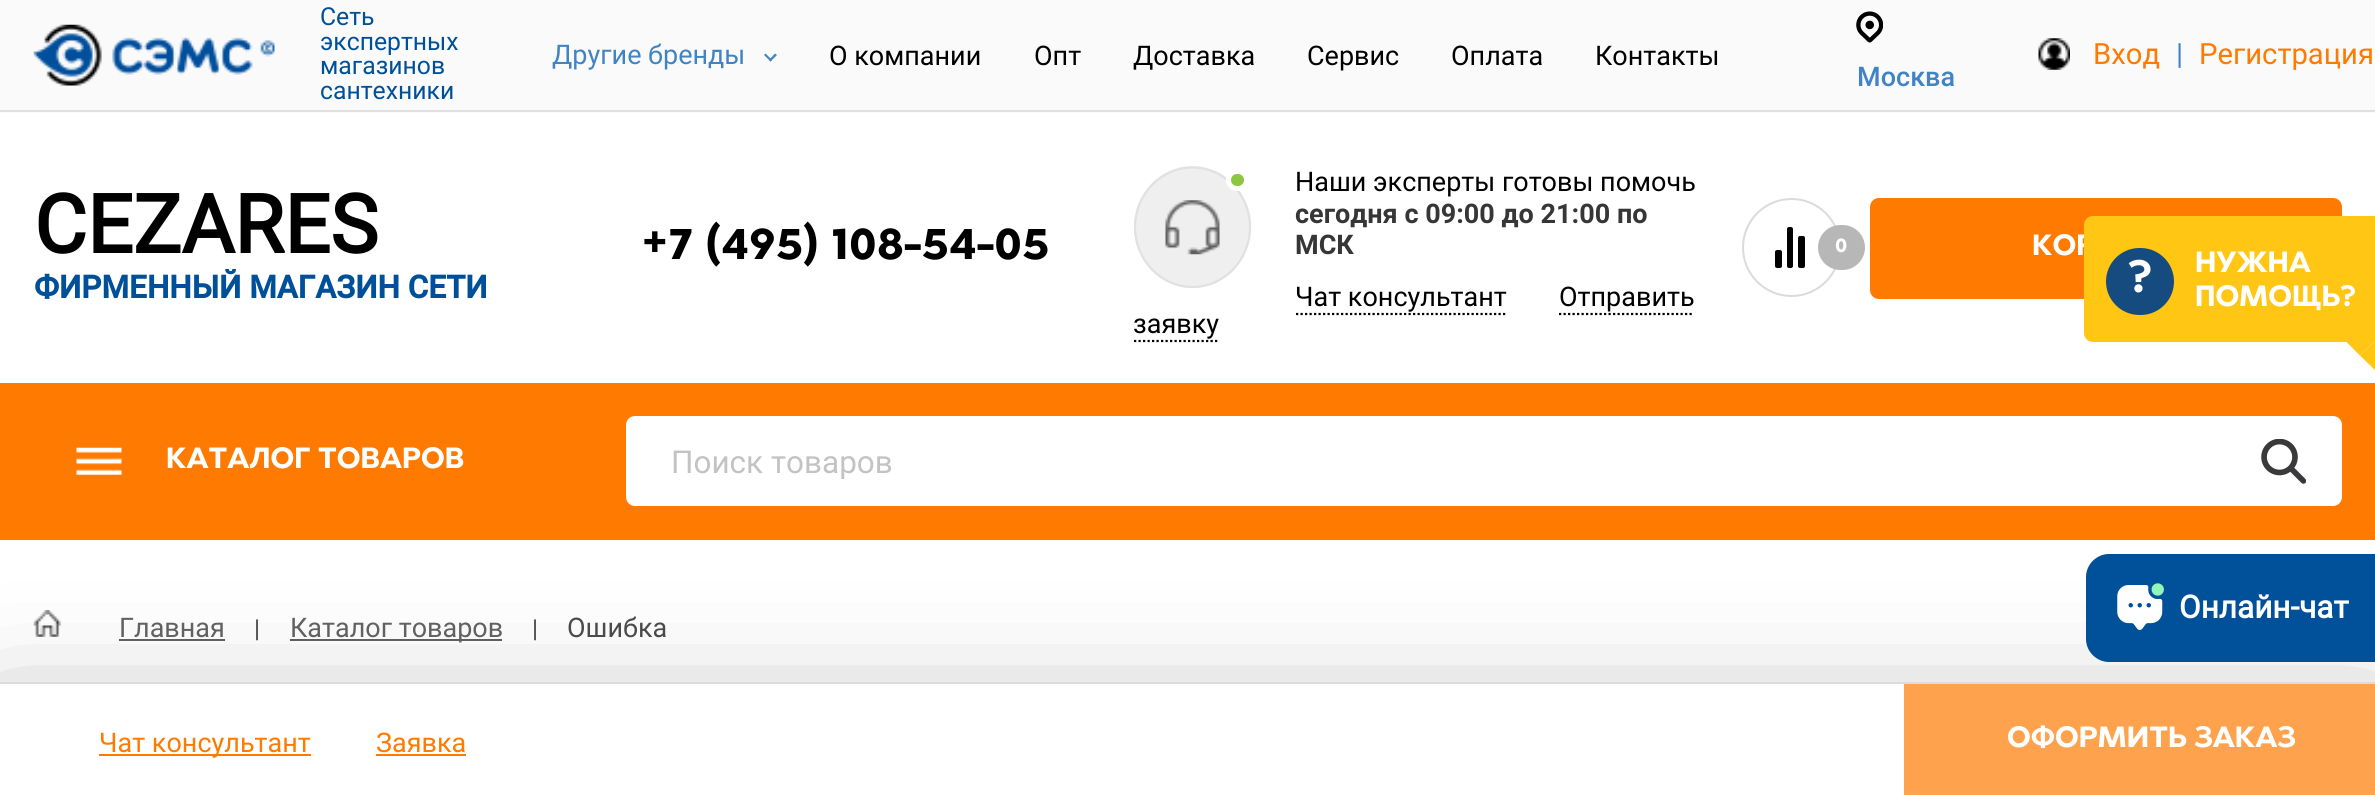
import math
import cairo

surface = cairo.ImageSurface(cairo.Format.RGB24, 2375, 795)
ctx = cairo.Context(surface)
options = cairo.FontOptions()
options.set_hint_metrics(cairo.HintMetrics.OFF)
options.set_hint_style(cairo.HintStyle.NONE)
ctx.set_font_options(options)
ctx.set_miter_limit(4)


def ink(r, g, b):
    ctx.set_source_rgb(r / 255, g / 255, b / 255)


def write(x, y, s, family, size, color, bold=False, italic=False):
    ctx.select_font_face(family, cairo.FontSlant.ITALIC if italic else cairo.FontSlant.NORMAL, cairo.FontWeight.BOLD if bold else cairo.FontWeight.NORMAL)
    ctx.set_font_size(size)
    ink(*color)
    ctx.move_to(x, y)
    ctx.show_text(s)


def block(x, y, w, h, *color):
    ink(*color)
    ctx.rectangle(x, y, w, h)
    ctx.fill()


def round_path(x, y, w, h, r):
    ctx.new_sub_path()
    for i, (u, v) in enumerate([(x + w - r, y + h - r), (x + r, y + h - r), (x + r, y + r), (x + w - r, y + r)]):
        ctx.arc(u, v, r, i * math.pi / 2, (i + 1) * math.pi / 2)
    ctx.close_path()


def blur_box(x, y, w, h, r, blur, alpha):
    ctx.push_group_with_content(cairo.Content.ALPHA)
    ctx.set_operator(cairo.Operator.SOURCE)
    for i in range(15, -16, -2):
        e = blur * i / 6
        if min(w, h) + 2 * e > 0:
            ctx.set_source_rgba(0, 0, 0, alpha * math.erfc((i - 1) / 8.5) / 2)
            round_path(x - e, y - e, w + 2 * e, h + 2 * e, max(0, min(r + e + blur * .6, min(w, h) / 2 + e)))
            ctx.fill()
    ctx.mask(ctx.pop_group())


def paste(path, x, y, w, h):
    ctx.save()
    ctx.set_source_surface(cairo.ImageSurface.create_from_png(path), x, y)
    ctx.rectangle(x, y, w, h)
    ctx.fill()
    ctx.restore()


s1 = dict(family="Roboto", size=24.75, color=(0, 80, 153))
s2 = dict(family="Roboto", size=27, color=(64, 132, 197))
s3 = dict(family="Roboto", size=27, color=(0, 0, 0))
s4 = dict(family="Roboto", size=29.25, color=(255, 122, 0))
s5 = dict(family="Roboto", size=29.25, color=(64, 132, 197))
s6 = dict(family="Roboto Medium", size=27, color=(64, 132, 197))
s7 = dict(family="Roboto", size=81, color=(0, 0, 0), bold=True)
s8 = dict(family="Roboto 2", size=31.5, color=(0, 80, 153), bold=True)
s9 = dict(family="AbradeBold", size=49.5, color=(0, 0, 0), bold=True)
s10 = dict(family="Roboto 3", size=27, color=(54, 54, 54), bold=True)
s11 = dict(family="AbradeBold", size=22, color=(255, 255, 255), bold=True)
s12 = dict(family="AbradeBold", size=29.25, color=(255, 255, 255), bold=True)
s13 = dict(family="AbradeBold", size=45, color=(255, 255, 255), bold=True)
s14 = dict(family="Roboto", size=31.5, color=(195, 195, 195))
s15 = dict(family="Roboto", size=31.5, color=(255, 255, 255), bold=True)
s16 = dict(family="Roboto", size=27, color=(97, 97, 97))
s17 = dict(family="Roboto", size=24.75, color=(74, 74, 74))
s18 = dict(family="Roboto", size=27, color=(74, 74, 74))
s19 = dict(family="Roboto", size=27, color=(255, 122, 0))

ink(255, 255, 255)
ctx.paint()
block(0, 0, 2375, 113, 250, 250, 250)
block(0, 110, 2375, 2, 225, 225, 225)
paste("pic1.png", 33, 24, 242, 62)
write(320, 25, "Cеть", **s1)
write(320, 50, "экспертных", **s1)
write(320, 74, "магазинов", **s1)
write(320, 99, "сантехники", **s1)
write(552, 64, "Другие бренды", **s2)
ctx.new_path()
ctx.move_to(769, 60)
ctx.line_to(775, 53.5)
ctx.line_to(777, 55)
ctx.line_to(770.5, 61.5)
ctx.close_path()
ctx.fill()
ctx.new_path()
ctx.move_to(764, 55)
ctx.line_to(765.5, 53.5)
ctx.line_to(772, 60)
ctx.line_to(770.5, 61.5)
ctx.close_path()
ctx.fill()
write(829, 65, "О компании", **s3)
write(1034, 65, "Опт", **s3)
write(1133, 65, "Доставка", **s3)
write(1307, 65, "Сервис", **s3)
write(1451, 65, "Оплата", **s3)
write(1595, 65, "Контакты", **s3)
paste("pic2.png", 2038, 38, 32, 32)
write(2093, 64, "Вход", **s4)
write(2176, 64, "|", **s5)
write(2199, 64, "Регистрация", **s4)
paste("pic3.png", 1856, 11, 27, 32)
write(1857, 86, "Москва", **s6)
write(34, 253, "CEZARES", **s7)
write(34, 298, "ФИРМЕННЫЙ МАГАЗИН СЕТИ", **s8)
write(641, 259, "+7 (495) 108-54-05", **s9)
ink(239, 239, 239)
ctx.new_path()
ctx.move_to(1192.5, 166)
ctx.curve_to(1225, 166, 1251, 193.5, 1251, 227)
ctx.curve_to(1251, 260.5, 1225, 288, 1192.5, 288)
ctx.curve_to(1160, 288, 1134, 260.5, 1134, 227)
ctx.curve_to(1134, 193.5, 1160, 166, 1192.5, 166)
ctx.close_path()
ctx.fill()
ctx.new_path()
ctx.move_to(1192.5, 167.5)
ctx.curve_to(1224, 167.5, 1250, 194.5, 1250, 227)
ctx.curve_to(1250, 260, 1224, 287, 1192.5, 287)
ctx.curve_to(1161, 287, 1135, 260, 1135, 227)
ctx.curve_to(1135, 194.5, 1161, 167.5, 1192.5, 167.5)
ctx.close_path()
ink(225, 225, 225)
ctx.set_line_width(2.2)
ctx.stroke()
ink(141, 198, 63)
round_path(1228.5, 171.5, 18, 17, 8.5)
ctx.fill_preserve()
ink(255, 255, 255)
ctx.set_line_width(5)
ctx.stroke()
paste("pic4.png", 1165, 200, 55, 55)
write(1295, 191, "Наши эксперты готовы помочь", **s3)
write(1295, 223, "сегодня c 09:00 до 21:00 по", **s10)
write(1295, 254, "МСК", **s10)
write(1295, 306, "Чат консультант", **s3)
ctx.new_path()
ctx.move_to(1296, 314)
ctx.line_to(1507.5, 314)
ctx.set_line_width(2.2)
ctx.set_dash([2.25, 2.25])
ctx.stroke()
write(1559, 306, "Отправить", **s3)
ctx.new_path()
ctx.move_to(1559, 314)
ctx.line_to(1694, 314)
ctx.stroke()
write(1133, 333, "заявку", **s3)
ctx.new_path()
ctx.move_to(1134, 341)
ctx.line_to(1219.5, 341)
ctx.stroke()
ctx.arc(1791.5, 247.5, 48.5, 0, 2 * math.pi)
ink(219, 219, 219)
ctx.set_line_width(2)
ctx.set_dash([])
ctx.stroke()
ink(1, 1, 1)
round_path(1775, 250, 7, 18, 2)
ctx.fill()
round_path(1787, 227, 6, 41, 2)
ctx.fill()
round_path(1798, 236, 7, 32, 2)
ctx.fill()
ink(183, 183, 183)
round_path(1818, 225, 47, 45, 22.5)
ctx.fill()
write(1835, 252, "0", **s11)
ink(255, 122, 0)
round_path(1870, 198, 472, 101, 9)
ctx.fill()
write(2032, 255, "КОР", **s12)
ink(255, 198, 19)
ctx.new_path()
ctx.move_to(2093, 216)
ctx.line_to(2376, 216)
ctx.line_to(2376, 342)
ctx.line_to(2093, 342)
ctx.curve_to(2088, 342, 2084, 338, 2084, 333)
ctx.line_to(2084, 225)
ctx.curve_to(2084, 220, 2088, 216, 2093, 216)
ctx.close_path()
ctx.fill()
ink(21, 75, 126)
round_path(2106, 248, 68, 67, 33.5)
ctx.fill()
write(2128, 292, "?", **s13)
write(2195, 272, "НУЖНА", **s12)
write(2195, 306, "ПОМОЩЬ?", **s12)
ink(255, 198, 19)
ctx.new_path()
ctx.move_to(2344.5, 340)
ctx.line_to(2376, 340)
ctx.line_to(2360, 355.5)
ctx.close_path()
ctx.fill()
ctx.new_path()
ctx.move_to(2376, 340)
ctx.line_to(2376, 371)
ctx.line_to(2360, 355.5)
ctx.close_path()
ctx.fill()
block(0, 383, 2375, 157, 255, 122, 0)
paste("pic5.png", 76, 447, 46, 28)
write(166, 468, "КАТАЛОГ ТОВАРОВ", **s12)
round_path(626, 416, 1716, 90, 9)
ctx.fill()
paste("pic6.png", 2261, 439, 45, 45)
ctx.save()
ctx.rectangle(671, 443, 1626, 36)
ctx.clip()
write(671, 473, "Поиск товаров", **s14)
ctx.restore()
paste("pic8.png", 33, 610, 28, 27)
block(119, 639, 106, 2, 97, 97, 97)
block(290, 639, 212, 2, 97, 97, 97)
block(0, 682, 2375, 2, 240, 240, 240)
ink(0, 0, 0)
blur_box(0, 740, 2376, 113, 0, 64, 0.52)
ink(0, 80, 154)
ctx.new_path()
ctx.move_to(2109, 554)
ctx.line_to(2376, 554)
ctx.line_to(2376, 662)
ctx.line_to(2109, 662)
ctx.curve_to(2096.5, 662, 2086, 651.5, 2086, 639)
ctx.line_to(2086, 577)
ctx.curve_to(2086, 564.5, 2096.5, 554, 2109, 554)
ctx.close_path()
ctx.fill()
paste("pic7.png", 2117, 583, 47, 47)
write(2179, 618, "Онлайн-чат", **s15)
write(119, 637, "Главная", **s16)
write(254, 637, "|", **s17)
write(290, 637, "Каталог товаров", **s16)
write(532, 637, "|", **s17)
write(567, 637, "Ошибка", **s18)
block(0, 684, 1904, 111, 255, 255, 255)
block(99, 754, 212, 2, 255, 122, 0)
write(99, 752, "Чат консультант", **s19)
write(376, 752, "Заявка", **s19)
block(376, 754, 90, 2, 255, 122, 0)
block(1904, 684, 471, 111, 255, 162, 77)
write(2007, 747, "ОФОРМИТЬ ЗАКАЗ", **s12)
surface.write_to_png("screenshot.png")
